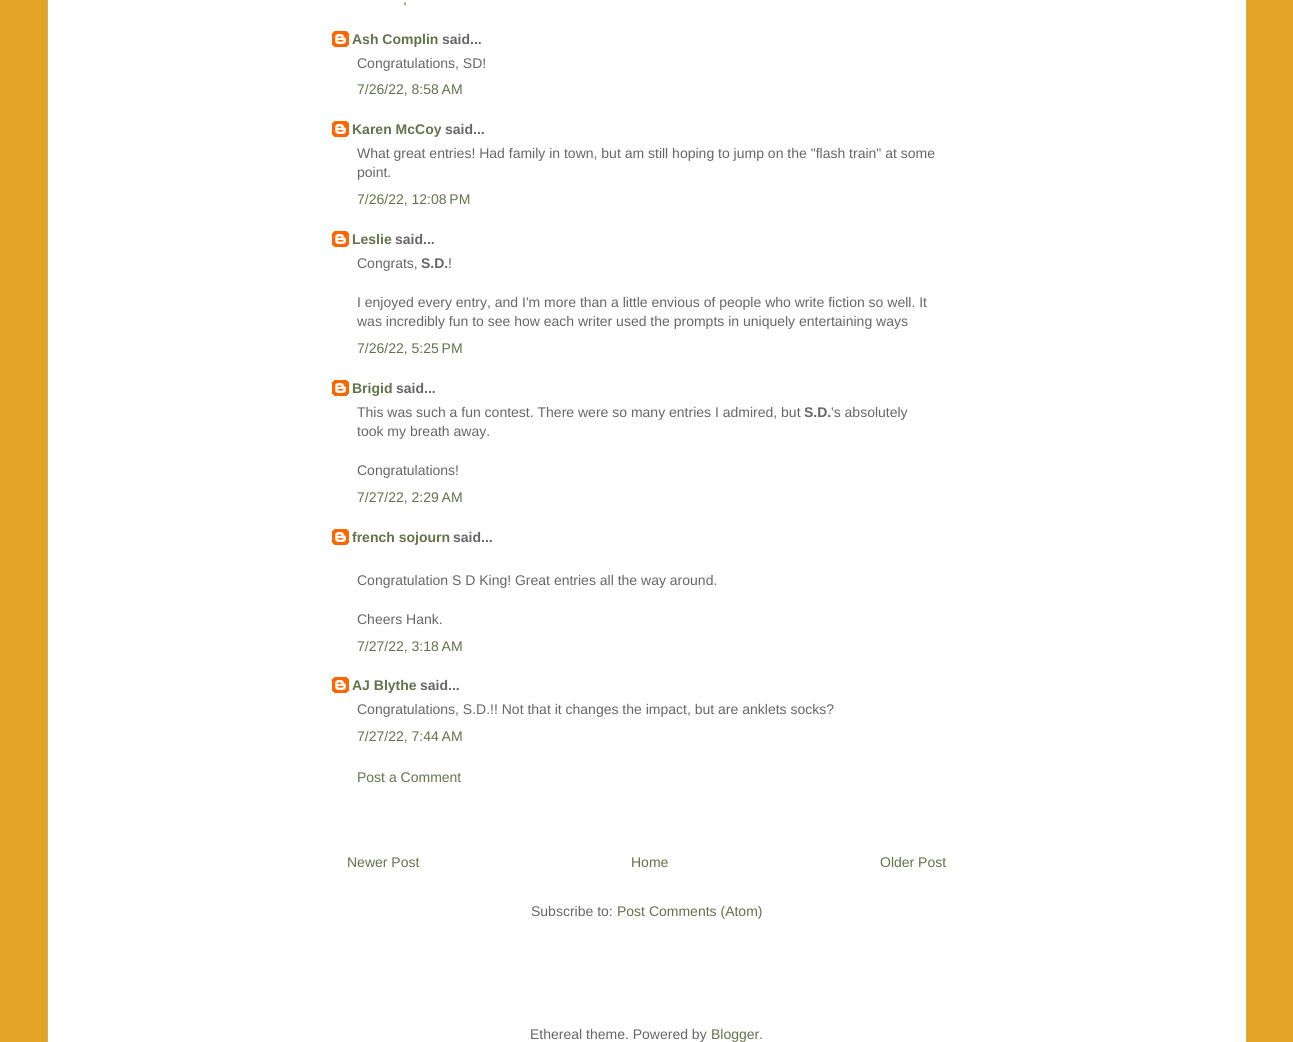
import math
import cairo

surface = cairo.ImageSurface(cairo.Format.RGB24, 1293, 1042)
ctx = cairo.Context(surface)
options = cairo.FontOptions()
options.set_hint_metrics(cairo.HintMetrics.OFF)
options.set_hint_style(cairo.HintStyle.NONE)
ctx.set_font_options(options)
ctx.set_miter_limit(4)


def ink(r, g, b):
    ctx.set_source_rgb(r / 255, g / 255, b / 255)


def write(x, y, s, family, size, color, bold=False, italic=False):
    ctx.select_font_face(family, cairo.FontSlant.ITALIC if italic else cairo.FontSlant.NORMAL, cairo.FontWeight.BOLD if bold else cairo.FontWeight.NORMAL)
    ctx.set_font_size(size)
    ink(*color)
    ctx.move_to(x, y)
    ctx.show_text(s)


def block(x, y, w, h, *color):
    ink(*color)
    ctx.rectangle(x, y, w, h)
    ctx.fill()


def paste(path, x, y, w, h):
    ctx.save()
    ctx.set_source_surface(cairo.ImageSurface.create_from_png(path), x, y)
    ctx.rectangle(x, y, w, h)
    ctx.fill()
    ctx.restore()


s1 = dict(family="Liberation Sans", size=14, color=(98, 115, 73))
s2 = dict(family="Liberation Sans", size=14, color=(98, 115, 73), bold=True)
s3 = dict(family="Liberation Sans", size=14, color=(102, 102, 102), bold=True)
s4 = dict(family="Liberation Sans", size=14, color=(102, 102, 102))

ink(227, 163, 39)
ctx.paint()
block(48, 0, 1198, 1042, 255, 255, 255)
block(1246, 0, 1, 1042, 216, 175, 76)
block(47, 0, 1, 1042, 216, 175, 76)
write(403, 4, ",", **s1)
paste("pic1.png", 332, 31, 17, 16)
write(352, 44, "Ash Complin", **s2)
write(442, 44, "said...", **s3)
write(357, 68, "Congratulations, SD!", **s4)
write(357, 94, "7/26/22, 8:58 AM", **s1)
paste("pic1.png", 332, 121, 17, 16)
write(352, 134, "Karen McCoy", **s2)
write(445, 134, "said...", **s3)
write(357, 158, "What great entries! Had family in town, but am still hoping to jump on the \"flash train\" at some", **s4)
write(357, 177, "point.", **s4)
write(357, 204, "7/26/22, 12:08 PM", **s1)
paste("pic1.png", 332, 231, 17, 16)
write(352, 244, "Leslie", **s2)
write(395, 244, "said...", **s3)
write(357, 268, "Congrats,", **s4)
write(421, 268, "S.D.", **s3)
write(448, 268, "!", **s4)
write(357, 307, "I enjoyed every entry, and I'm more than a little envious of people who write fiction so well. It", **s4)
write(357, 326, "was incredibly fun to see how each writer used the prompts in uniquely entertaining ways", **s4)
write(357, 353, "7/26/22, 5:25 PM", **s1)
paste("pic1.png", 332, 380, 17, 16)
write(352, 393, "Brigid", **s2)
write(396, 393, "said...", **s3)
write(357, 417, "This was such a fun contest. There were so many entries I admired, but", **s4)
write(804, 417, "S.D.", **s3)
write(831, 417, "'s absolutely", **s4)
write(357, 436, "took my breath away.", **s4)
write(357, 475, "Congratulations!", **s4)
write(357, 502, "7/27/22, 2:29 AM", **s1)
paste("pic1.png", 332, 529, 17, 16)
write(352, 542, "french sojourn", **s2)
write(453, 542, "said...", **s3)
write(357, 585, "Congratulation S D King! Great entries all the way around.", **s4)
write(357, 624, "Cheers Hank.", **s4)
write(357, 651, "7/27/22, 3:18 AM", **s1)
paste("pic1.png", 332, 677, 17, 16)
write(352, 690, "AJ Blythe", **s2)
write(420, 690, "said...", **s3)
write(357, 714, "Congratulations, S.D.!! Not that it changes the impact, but are anklets socks?", **s4)
write(357, 741, "7/27/22, 7:44 AM", **s1)
write(357, 782, "Post a Comment", **s1)
write(347, 867, "Newer Post", **s1)
write(631, 867, "Home", **s1)
write(880, 867, "Older Post", **s1)
write(531, 916, "Subscribe to:", **s4)
write(617, 916, "Post Comments (Atom)", **s1)
write(530, 1039, "Ethereal theme. Powered by", **s4)
write(711, 1039, "Blogger", **s1)
write(759, 1039, ".", **s4)
surface.write_to_png("screenshot.png")
